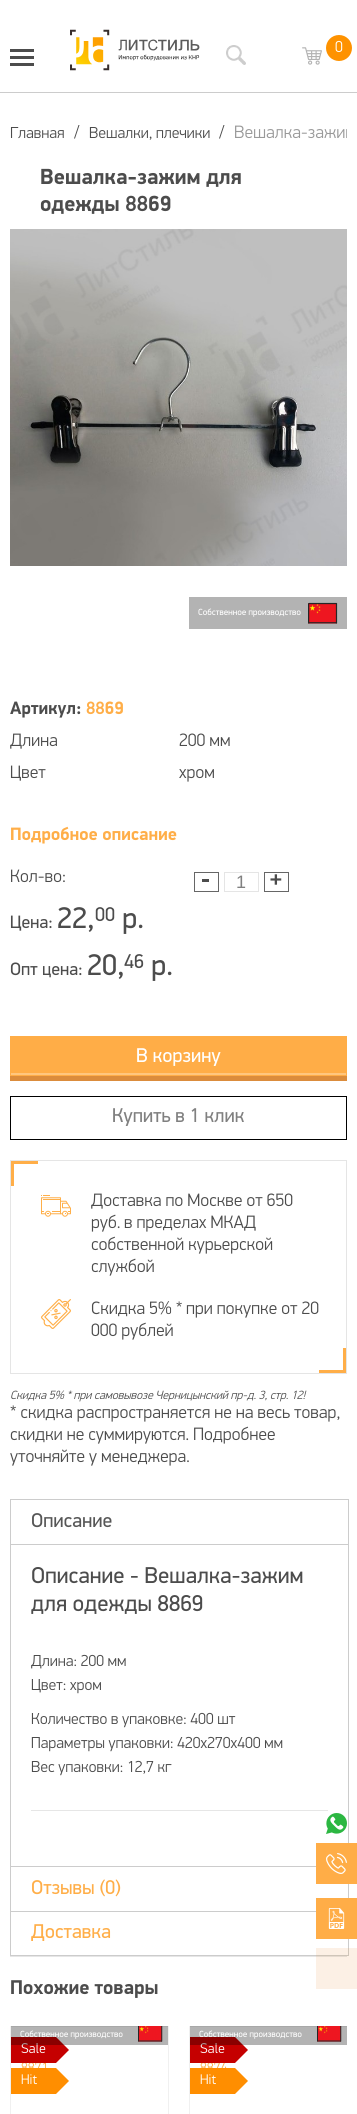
import math
import cairo

surface = cairo.ImageSurface(cairo.Format.RGB24, 357, 2114)
ctx = cairo.Context(surface)
options = cairo.FontOptions()
options.set_hint_metrics(cairo.HintMetrics.OFF)
options.set_hint_style(cairo.HintStyle.NONE)
ctx.set_font_options(options)
ctx.set_miter_limit(4)


def ink(r, g, b):
    ctx.set_source_rgb(r / 255, g / 255, b / 255)


def write(x, y, s, family, size, color, bold=False, italic=False):
    ctx.select_font_face(family, cairo.FontSlant.ITALIC if italic else cairo.FontSlant.NORMAL, cairo.FontWeight.BOLD if bold else cairo.FontWeight.NORMAL)
    ctx.set_font_size(size)
    ink(*color)
    ctx.move_to(x, y)
    ctx.show_text(s)


def block(x, y, w, h, *color):
    ink(*color)
    ctx.rectangle(x, y, w, h)
    ctx.fill()


def paste(path, x, y, w, h):
    ctx.save()
    ctx.set_source_surface(cairo.ImageSurface.create_from_png(path), x, y)
    ctx.rectangle(x, y, w, h)
    ctx.fill()
    ctx.restore()


s1 = dict(family="Liberation Sans", size=18, color=(128, 128, 128))

ink(255, 255, 255)
ctx.paint()
block(0, 92, 357, 1, 204, 204, 204)
block(10, 49, 24, 3, 76, 76, 76)
block(10, 56, 24, 3, 76, 76, 76)
block(10, 63, 24, 3, 76, 76, 76)
paste("pic1.png", 70, 29, 130, 42)
paste("pic2.png", 226, 45, 20, 20)
paste("pic3.png", 302, 47, 20, 18)
ink(254, 146, 0)
ctx.arc(339, 48, 13, 0, 2 * math.pi)
ctx.fill()
paste("pic4.png", 335, 40, 8, 13)
paste("pic5.png", 10, 127, 54, 12)
ink(76, 76, 76)
ctx.new_path()
ctx.move_to(75, 138.5)
ctx.line_to(74, 138.5)
ctx.line_to(78.5, 125)
ctx.line_to(79.5, 125)
ctx.close_path()
ctx.fill()
paste("pic6.png", 89, 127, 121, 13)
ctx.new_path()
ctx.move_to(220, 138.5)
ctx.line_to(219, 138.5)
ctx.line_to(223.5, 125)
ctx.line_to(224.5, 125)
ctx.close_path()
ctx.fill()
paste("pic7.png", 235, 125, 112, 14)
paste("pic8.png", 41, 168, 200, 19)
paste("pic9.png", 40, 195, 131, 19)
paste("pic10.png", 10, 229, 337, 337)
block(189, 597, 158, 32, 179, 179, 179)
paste("pic11.png", 198, 608, 103, 9)
paste("pic12.png", 308, 602, 30, 22)
paste("pic13.png", 10, 701, 71, 17)
paste("pic14.png", 86, 701, 37, 14)
paste("pic15.png", 10, 733, 47, 16)
paste("pic16.png", 179, 733, 51, 14)
paste("pic17.png", 10, 765, 36, 16)
paste("pic18.png", 179, 769, 35, 13)
paste("pic19.png", 11, 826, 166, 18)
paste("pic20.png", 11, 869, 54, 14)
ctx.rectangle(194.5, 872.5, 24, 19)
ink(102, 102, 102)
ctx.set_line_width(1)
ctx.stroke()
block(202, 879, 7, 3, 76, 76, 76)
ctx.rectangle(224.5, 872.5, 34, 19)
ink(229, 229, 229)
ctx.stroke()
write(236, 888, "1", **s1)
ctx.rectangle(264.5, 872.5, 24, 19)
ink(102, 102, 102)
ctx.stroke()
paste("pic21.png", 270, 874, 12, 11)
paste("pic22.png", 10, 915, 42, 16)
paste("pic23.png", 58, 907, 35, 25)
paste("pic24.png", 95, 907, 20, 15)
paste("pic25.png", 123, 913, 20, 21)
paste("pic26.png", 10, 962, 72, 16)
paste("pic27.png", 88, 954, 35, 25)
paste("pic28.png", 124, 954, 20, 15)
paste("pic25.png", 152, 960, 20, 21)
block(10, 1076, 337, 5, 219, 140, 60)
block(10, 1036, 337, 40, 255, 173, 71)
block(11, 1073, 335, 2, 255, 198, 126)
paste("pic29.png", 137, 1048, 84, 18)
ctx.rectangle(10.5, 1096.5, 336, 43)
ink(0, 0, 0)
ctx.stroke()
paste("pic30.png", 113, 1108, 131, 18)
ctx.rectangle(10.5, 1160.5, 336, 213)
ink(229, 229, 229)
ctx.stroke()
paste("pic31.png", 11, 1161, 27, 25)
paste("pic32.png", 41, 1195, 30, 22)
paste("pic33.png", 91, 1193, 202, 16)
paste("pic34.png", 91, 1214, 29, 18)
paste("pic35.png", 124, 1215, 132, 17)
paste("pic36.png", 91, 1236, 182, 18)
paste("pic37.png", 91, 1258, 63, 18)
paste("pic38.png", 41, 1299, 30, 30)
paste("pic39.png", 91, 1301, 91, 16)
paste("pic40.png", 186, 1301, 133, 17)
paste("pic41.png", 91, 1322, 82, 18)
paste("pic42.png", 319, 1348, 27, 25)
paste("pic43.png", 11, 1390, 296, 12)
paste("pic44.png", 10, 1405, 330, 17)
paste("pic45.png", 10, 1426, 265, 18)
paste("pic46.png", 10, 1449, 179, 17)
ctx.rectangle(10.5, 1499.5, 338, 456)
ink(204, 204, 204)
ctx.stroke()
block(11, 1544, 337, 1, 204, 204, 204)
paste("pic47.png", 32, 1513, 80, 15)
block(11, 1866, 305, 1, 204, 204, 204)
block(31, 1810, 297, 1, 230, 230, 230)
paste("pic48.png", 32, 1567, 271, 17)
paste("pic49.png", 31, 1595, 172, 19)
paste("pic50.png", 31, 1654, 95, 15)
paste("pic51.png", 31, 1679, 70, 15)
paste("pic52.png", 31, 1712, 205, 16)
paste("pic53.png", 31, 1736, 252, 16)
paste("pic54.png", 31, 1760, 141, 16)
block(11, 1911, 305, 1, 204, 204, 204)
paste("pic55.png", 32, 1879, 89, 18)
paste("pic56.png", 31, 1924, 80, 17)
block(10, 1956, 337, 1, 230, 230, 230)
paste("pic57.png", 11, 1980, 147, 18)
ctx.rectangle(10.5, 2026.5, 158, 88)
ink(240, 240, 240)
ctx.stroke()
block(11, 2037, 45, 26, 197, 0, 0)
paste("pic60.png", 21, 2043, 25, 11)
ctx.new_path()
ctx.move_to(56, 2063)
ctx.line_to(56, 2037)
ctx.line_to(69, 2050)
ctx.close_path()
ctx.fill()
ctx.set_source_rgba(0, 0, 0, 0.3)
ctx.rectangle(11, 2026, 157, 19)
ctx.fill()
paste("pic58.png", 20, 2030, 103, 9)
paste("pic59.png", 138, 2026, 25, 16)
block(11, 2068, 45, 26, 255, 142, 0)
paste("pic61.png", 21, 2074, 16, 11)
ctx.new_path()
ctx.move_to(56, 2094)
ctx.line_to(56, 2068)
ctx.line_to(69, 2081)
ctx.close_path()
ctx.fill()
paste("pic62.png", 21, 2063, 25, 5)
ctx.save()
ctx.rectangle(10, 2026, 337, 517)
ctx.clip()
ctx.rectangle(189.5, 2026.5, 158, 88)
ink(240, 240, 240)
ctx.stroke()
ctx.restore()
block(190, 2037, 45, 26, 197, 0, 0)
paste("pic60.png", 200, 2043, 25, 11)
ctx.new_path()
ctx.move_to(235, 2063)
ctx.line_to(235, 2037)
ctx.line_to(248, 2050)
ctx.close_path()
ctx.fill()
ctx.set_source_rgba(0, 0, 0, 0.3)
ctx.rectangle(190, 2026, 157, 19)
ctx.fill()
paste("pic58.png", 199, 2030, 103, 9)
paste("pic59.png", 317, 2026, 25, 16)
block(190, 2068, 45, 26, 255, 142, 0)
paste("pic61.png", 200, 2074, 16, 11)
ctx.new_path()
ctx.move_to(235, 2094)
ctx.line_to(235, 2068)
ctx.line_to(248, 2081)
ctx.close_path()
ctx.fill()
paste("pic63.png", 200, 2063, 27, 5)
paste("pic64.png", 326, 1813, 21, 21)
block(316, 1843, 41, 41, 255, 173, 71)
paste("pic65.png", 326, 1853, 21, 21)
block(316, 1898, 41, 41, 255, 173, 71)
paste("pic66.png", 328, 1908, 17, 21)
ctx.set_source_rgba(0.91, 0.608, 0.239, 0.05)
ctx.rectangle(316, 1948, 41, 41)
ctx.fill()
ctx.rectangle(316, 1948, 41, 41)
ctx.fill()
ctx.rectangle(316, 1948, 41, 41)
ctx.fill()
surface.write_to_png("screenshot.png")
